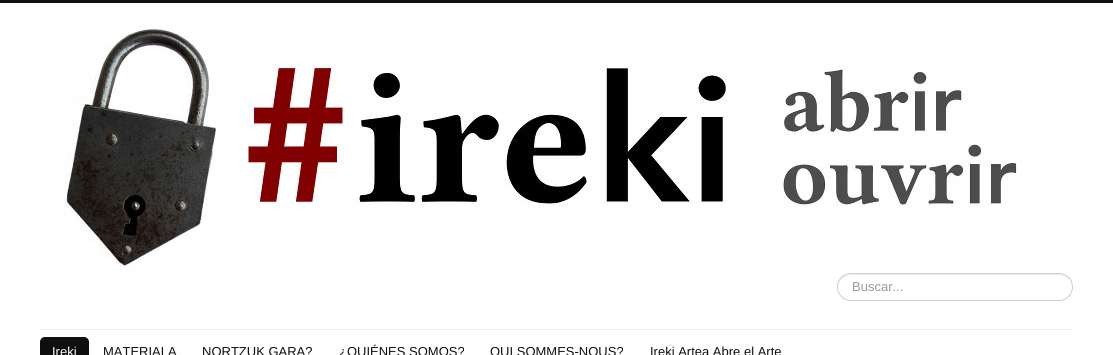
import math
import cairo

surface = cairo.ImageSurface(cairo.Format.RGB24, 1113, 355)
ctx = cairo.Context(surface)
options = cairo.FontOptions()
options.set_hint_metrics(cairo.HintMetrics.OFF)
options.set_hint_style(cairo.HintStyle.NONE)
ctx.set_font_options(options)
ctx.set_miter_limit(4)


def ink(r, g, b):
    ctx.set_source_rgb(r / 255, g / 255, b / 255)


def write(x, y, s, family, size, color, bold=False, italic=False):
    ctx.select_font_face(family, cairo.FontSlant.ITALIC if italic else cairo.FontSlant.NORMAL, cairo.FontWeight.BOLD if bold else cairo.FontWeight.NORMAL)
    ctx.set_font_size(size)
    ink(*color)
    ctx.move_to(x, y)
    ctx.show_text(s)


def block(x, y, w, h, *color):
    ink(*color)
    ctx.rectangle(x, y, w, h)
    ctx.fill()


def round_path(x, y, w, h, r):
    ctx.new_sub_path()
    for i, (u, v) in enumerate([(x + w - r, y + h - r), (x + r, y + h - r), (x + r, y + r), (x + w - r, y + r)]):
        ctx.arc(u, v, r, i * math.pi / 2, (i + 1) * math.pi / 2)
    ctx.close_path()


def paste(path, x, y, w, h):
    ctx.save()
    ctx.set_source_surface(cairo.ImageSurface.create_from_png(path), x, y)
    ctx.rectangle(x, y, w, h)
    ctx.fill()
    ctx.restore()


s1 = dict(family="Liberation Sans", size=13, color=(153, 153, 153))
s2 = dict(family="Liberation Sans", size=13, color=(255, 255, 255))
s3 = dict(family="Liberation Sans", size=13, color=(15, 15, 15))

ink(255, 255, 255)
ctx.paint()
block(0, 0, 1113, 3, 15, 15, 15)
paste("pic1.png", 64, 29, 953, 242)
ink(236, 236, 236)
ctx.new_path()
ctx.move_to(851, 275)
ctx.line_to(1059, 275)
ctx.curve_to(1066, 275, 1072, 281, 1072, 288)
ctx.curve_to(1072, 280, 1066, 274, 1059, 274)
ctx.line_to(851, 274)
ctx.curve_to(844, 274, 838, 280, 838, 288)
ctx.curve_to(838, 281, 844, 275, 851, 275)
ctx.close_path()
ctx.fill()
round_path(837.5, 273.5, 235, 27, 13.5)
ink(204, 204, 204)
ctx.set_line_width(1)
ctx.stroke()
write(852, 291, "Buscar...", **s1)
block(40, 329, 1033, 1, 236, 236, 236)
ink(15, 15, 15)
round_path(40, 337, 49, 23, 5)
ctx.fill()
write(52, 356, "Ireki", **s2)
write(103, 356, "MATERIALA", **s3)
write(202, 356, "NORTZUK GARA?", **s3)
write(339, 356, "¿QUIÉNES SOMOS?", **s3)
write(490, 356, "QUI SOMMES-NOUS?", **s3)
write(650, 356, "Ireki Artea Abre el Arte", **s3)
surface.write_to_png("screenshot.png")
